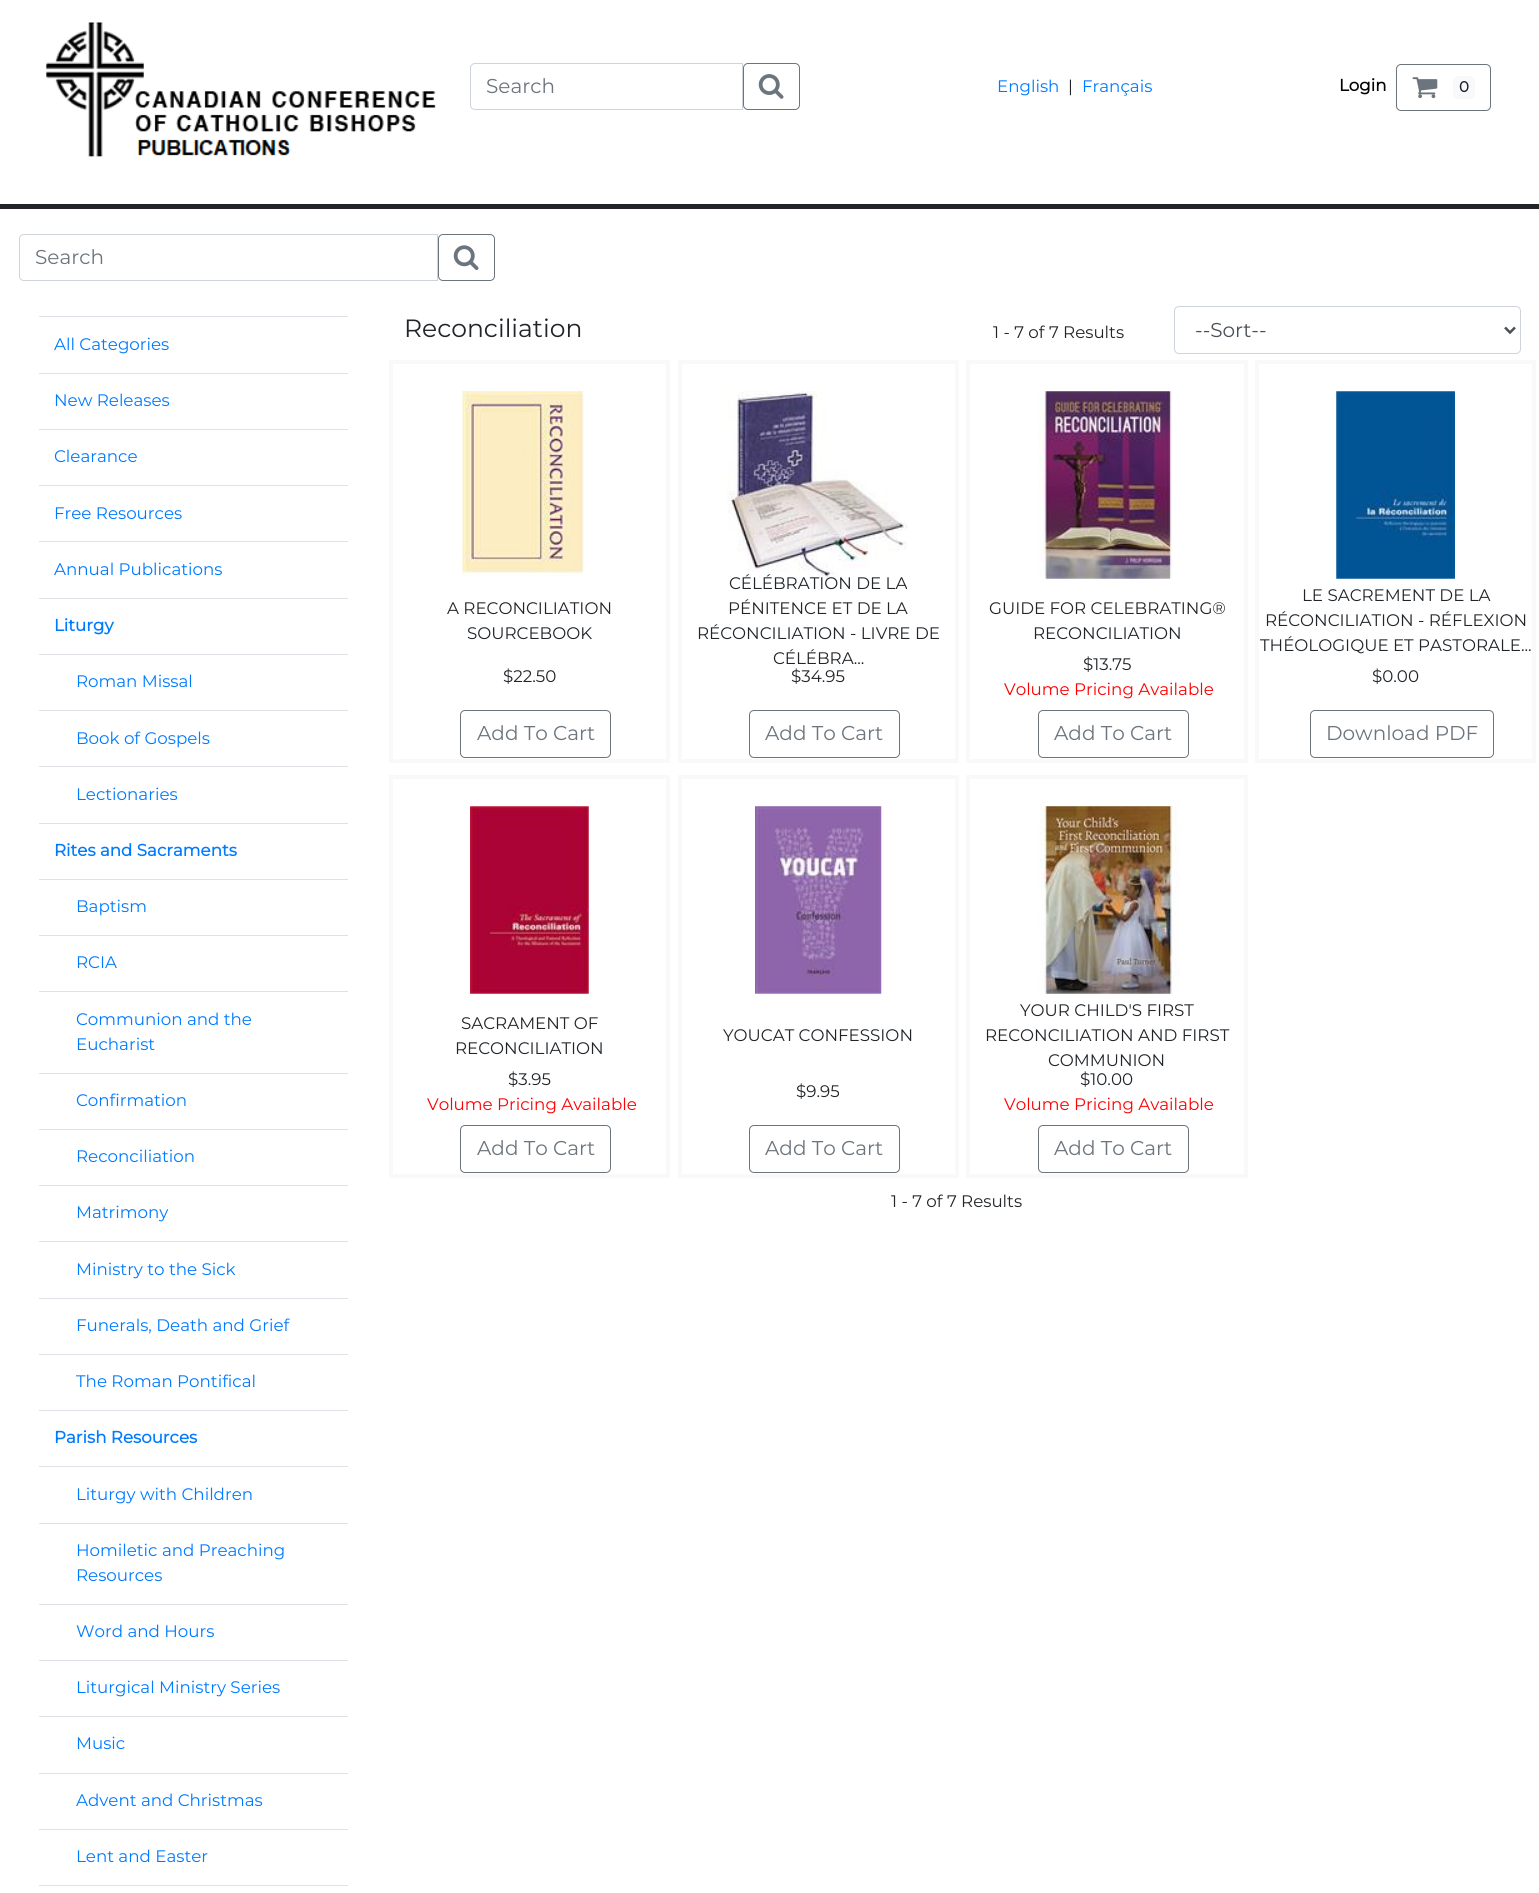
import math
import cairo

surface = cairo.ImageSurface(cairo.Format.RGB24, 1539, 1893)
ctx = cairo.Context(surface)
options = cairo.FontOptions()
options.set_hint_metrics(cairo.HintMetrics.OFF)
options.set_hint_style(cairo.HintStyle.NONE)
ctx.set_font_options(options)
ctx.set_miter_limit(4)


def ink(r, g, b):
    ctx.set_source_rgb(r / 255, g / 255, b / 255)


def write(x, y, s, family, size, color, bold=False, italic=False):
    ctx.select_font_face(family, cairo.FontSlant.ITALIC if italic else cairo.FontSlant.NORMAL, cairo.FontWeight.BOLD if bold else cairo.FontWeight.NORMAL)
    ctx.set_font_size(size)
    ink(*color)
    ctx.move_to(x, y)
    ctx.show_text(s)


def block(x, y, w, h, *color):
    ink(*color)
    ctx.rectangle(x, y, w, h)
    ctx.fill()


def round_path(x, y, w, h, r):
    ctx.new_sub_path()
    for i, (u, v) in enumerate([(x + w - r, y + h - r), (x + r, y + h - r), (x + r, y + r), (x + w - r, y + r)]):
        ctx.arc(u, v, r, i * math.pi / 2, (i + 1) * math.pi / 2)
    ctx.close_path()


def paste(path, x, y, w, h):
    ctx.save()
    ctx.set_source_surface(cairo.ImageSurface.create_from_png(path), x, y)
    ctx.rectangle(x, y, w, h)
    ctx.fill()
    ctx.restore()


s1 = dict(family="Montserrat Thin", size=20, color=(108, 117, 125))
s2 = dict(family="Montserrat Thin", size=16.7, color=(0, 123, 255))
s3 = dict(family="Montserrat Thin", size=16.7, color=(33, 37, 41))
s4 = dict(family="Montserrat", size=16.7, color=(0, 0, 0), bold=True)
s5 = dict(family="Montserrat", size=15, color=(33, 37, 41), bold=True)
s6 = dict(family="Montserrat", size=16.7, color=(0, 123, 255), bold=True)
s7 = dict(family="Montserrat Thin", size=25, color=(33, 37, 41))
s8 = dict(family="Montserrat Thin", size=20, color=(73, 80, 87))
s9 = dict(family="Montserrat Thin", size=16.7, color=(255, 0, 0))

ink(255, 255, 255)
ctx.paint()
paste("pic1.png", 46, 22, 390, 135)
ctx.new_path()
ctx.move_to(475, 63.5)
ctx.line_to(742.5, 63.5)
ctx.line_to(742.5, 109.5)
ctx.line_to(475, 109.5)
ctx.curve_to(472.5, 109.5, 470.5, 107.5, 470.5, 105)
ctx.line_to(470.5, 68)
ctx.curve_to(470.5, 65.5, 472.5, 63.5, 475, 63.5)
ctx.close_path()
ink(206, 212, 218)
ctx.set_line_width(1)
ctx.stroke()
write(486, 93, "Search", **s1)
round_path(743.5, 63.5, 56, 46, 4.5)
ctx.stroke()
paste("pic2.png", 758, 74, 26, 25)
write(997, 92, "English", **s2)
write(1068, 92, "|", **s3)
write(1082, 92, "Français", **s2)
write(1339, 91, "Login", **s4)
round_path(1396.5, 64.5, 94, 46, 4.5)
ink(108, 117, 125)
ctx.stroke()
paste("pic3.png", 1412, 77, 26, 22)
ink(248, 249, 250)
round_path(1453, 76, 22, 23, 5)
ctx.fill()
write(1459, 92, "0", **s5)
block(0, 204, 1539, 5, 33, 37, 41)
ctx.new_path()
ctx.move_to(24, 234.5)
ctx.line_to(437.5, 234.5)
ctx.line_to(437.5, 280.5)
ctx.line_to(24, 280.5)
ctx.curve_to(21.5, 280.5, 19.5, 278.5, 19.5, 276)
ctx.line_to(19.5, 239)
ctx.curve_to(19.5, 236.5, 21.5, 234.5, 24, 234.5)
ctx.close_path()
ink(206, 212, 218)
ctx.stroke()
write(35, 264, "Search", **s1)
round_path(438.5, 234.5, 56, 46, 4.5)
ctx.stroke()
paste("pic4.png", 453, 245, 26, 25)
block(39, 316, 309, 1, 222, 226, 230)
write(54, 350, "All Categories", **s2)
block(39, 373, 309, 1, 222, 226, 230)
write(54, 406, "New Releases", **s2)
block(39, 429, 309, 1, 222, 226, 230)
write(54, 462, "Clearance", **s2)
block(39, 485, 309, 1, 222, 226, 230)
write(54, 519, "Free Resources", **s2)
block(39, 541, 309, 1, 222, 226, 230)
write(54, 575, "Annual Publications", **s2)
block(39, 598, 309, 1, 222, 226, 230)
write(54, 631, "Liturgy", **s6)
block(39, 654, 309, 1, 222, 226, 230)
write(76, 687, "Roman Missal", **s2)
block(39, 710, 309, 1, 222, 226, 230)
write(76, 744, "Book of Gospels", **s2)
block(39, 766, 309, 1, 222, 226, 230)
write(76, 800, "Lectionaries", **s2)
block(39, 823, 309, 1, 222, 226, 230)
write(54, 856, "Rites and Sacraments", **s6)
block(39, 879, 309, 1, 222, 226, 230)
write(76, 912, "Baptism", **s2)
block(39, 935, 309, 1, 222, 226, 230)
write(76, 968, "RCIA", **s2)
block(39, 991, 309, 1, 222, 226, 230)
write(76, 1025, "Communion and the", **s2)
write(76, 1050, "Eucharist", **s2)
block(39, 1073, 309, 1, 222, 226, 230)
write(76, 1106, "Confirmation", **s2)
block(39, 1129, 309, 1, 222, 226, 230)
write(76, 1162, "Reconciliation", **s2)
block(39, 1185, 309, 1, 222, 226, 230)
write(76, 1218, "Matrimony", **s2)
block(39, 1241, 309, 1, 222, 226, 230)
write(76, 1275, "Ministry to the Sick", **s2)
block(39, 1298, 309, 1, 222, 226, 230)
write(76, 1331, "Funerals, Death and Grief", **s2)
block(39, 1354, 309, 1, 222, 226, 230)
write(76, 1387, "The Roman Pontifical", **s2)
block(39, 1410, 309, 1, 222, 226, 230)
write(54, 1443, "Parish Resources", **s6)
block(39, 1466, 309, 1, 222, 226, 230)
write(76, 1500, "Liturgy with Children", **s2)
block(39, 1523, 309, 1, 222, 226, 230)
write(76, 1556, "Homiletic and Preaching", **s2)
write(76, 1581, "Resources", **s2)
block(39, 1604, 309, 1, 222, 226, 230)
write(76, 1637, "Word and Hours", **s2)
block(39, 1660, 309, 1, 222, 226, 230)
write(76, 1693, "Liturgical Ministry Series", **s2)
block(39, 1716, 309, 1, 222, 226, 230)
write(76, 1749, "Music", **s2)
block(39, 1773, 309, 1, 222, 226, 230)
write(76, 1806, "Advent and Christmas", **s2)
block(39, 1829, 309, 1, 222, 226, 230)
write(76, 1862, "Lent and Easter", **s2)
block(39, 1885, 309, 1, 222, 226, 230)
write(404, 337, "Reconciliation", **s7)
write(993, 338, "1 - 7 of 7 Results", **s3)
round_path(1174.5, 306.5, 346, 47, 4.5)
ink(206, 212, 218)
ctx.stroke()
ctx.new_path()
ctx.move_to(1505, 327.5)
ctx.line_to(1510, 332.5)
ctx.line_to(1515, 327.5)
ink(73, 80, 87)
ctx.set_line_width(2.5)
ctx.stroke()
write(1195, 337, "--Sort--", **s8)
ctx.rectangle(391, 362, 277, 399)
ink(249, 249, 249)
ctx.set_line_width(4)
ctx.stroke()
paste("pic5.png", 462, 391, 122, 186)
write(447, 614, "A RECONCILIATION", **s3)
write(467, 639, "SOURCEBOOK", **s3)
write(503, 682, "$22.50", **s3)
round_path(460.5, 710.5, 150, 47, 4.5)
ink(108, 117, 125)
ctx.set_line_width(1)
ctx.stroke()
write(477, 740, "Add To Cart", **s1)
ctx.rectangle(680, 362, 277, 399)
ink(249, 249, 249)
ctx.set_line_width(4)
ctx.stroke()
paste("pic6.png", 727, 391, 181, 188)
write(729, 589, "CÉLÉBRATION DE LA", **s3)
write(728, 614, "PÉNITENCE ET DE LA", **s3)
write(697, 639, "RÉCONCILIATION - LIVRE DE", **s3)
write(773, 664, "CÉLÉBRA...", **s3)
write(791, 682, "$34.95", **s3)
round_path(749.5, 710.5, 150, 47, 4.5)
ink(108, 117, 125)
ctx.set_line_width(1)
ctx.stroke()
write(765, 740, "Add To Cart", **s1)
ctx.rectangle(968, 362, 278, 399)
ink(249, 249, 249)
ctx.set_line_width(4)
ctx.stroke()
paste("pic7.png", 1037, 391, 135, 188)
write(989, 614, "GUIDE FOR CELEBRATING®", **s3)
write(1033, 639, "RECONCILIATION", **s3)
write(1083, 670, "$13.75", **s3)
write(1004, 695, "Volume Pricing Available", **s9)
round_path(1038.5, 710.5, 150, 47, 4.5)
ink(108, 117, 125)
ctx.set_line_width(1)
ctx.stroke()
write(1054, 740, "Add To Cart", **s1)
ctx.rectangle(1257, 362, 277, 399)
ink(249, 249, 249)
ctx.set_line_width(4)
ctx.stroke()
paste("pic8.png", 1336, 391, 119, 188)
write(1302, 601, "LE SACREMENT DE LA", **s3)
write(1265, 626, "RÉCONCILIATION - RÉFLEXION", **s3)
write(1260, 651, "THÉOLOGIQUE ET PASTORALE...", **s3)
write(1372, 682, "$0.00", **s3)
round_path(1310.5, 710.5, 183, 47, 4.5)
ink(108, 117, 125)
ctx.set_line_width(1)
ctx.stroke()
write(1326, 740, "Download PDF", **s1)
ctx.rectangle(391, 777, 277, 399)
ink(249, 249, 249)
ctx.set_line_width(4)
ctx.stroke()
paste("pic9.png", 470, 806, 119, 188)
write(461, 1029, "SACRAMENT OF", **s3)
write(455, 1054, "RECONCILIATION", **s3)
write(508, 1085, "$3.95", **s3)
write(427, 1110, "Volume Pricing Available", **s9)
round_path(460.5, 1125.5, 150, 47, 4.5)
ink(108, 117, 125)
ctx.set_line_width(1)
ctx.stroke()
write(477, 1155, "Add To Cart", **s1)
ctx.rectangle(680, 777, 277, 399)
ink(249, 249, 249)
ctx.set_line_width(4)
ctx.stroke()
paste("pic10.png", 755, 806, 127, 188)
write(723, 1041, "YOUCAT CONFESSION", **s3)
write(796, 1097, "$9.95", **s3)
round_path(749.5, 1125.5, 150, 47, 4.5)
ink(108, 117, 125)
ctx.set_line_width(1)
ctx.stroke()
write(765, 1155, "Add To Cart", **s1)
ctx.rectangle(968, 777, 278, 399)
ink(249, 249, 249)
ctx.set_line_width(4)
ctx.stroke()
paste("pic11.png", 1036, 806, 144, 188)
write(1020, 1016, "YOUR CHILD'S FIRST", **s3)
write(985, 1041, "RECONCILIATION AND FIRST", **s3)
write(1048, 1066, "COMMUNION", **s3)
write(1080, 1085, "$10.00", **s3)
write(1004, 1110, "Volume Pricing Available", **s9)
round_path(1038.5, 1125.5, 150, 47, 4.5)
ink(108, 117, 125)
ctx.set_line_width(1)
ctx.stroke()
write(1054, 1155, "Add To Cart", **s1)
write(891, 1207, "1 - 7 of 7 Results", **s3)
surface.write_to_png("screenshot.png")
